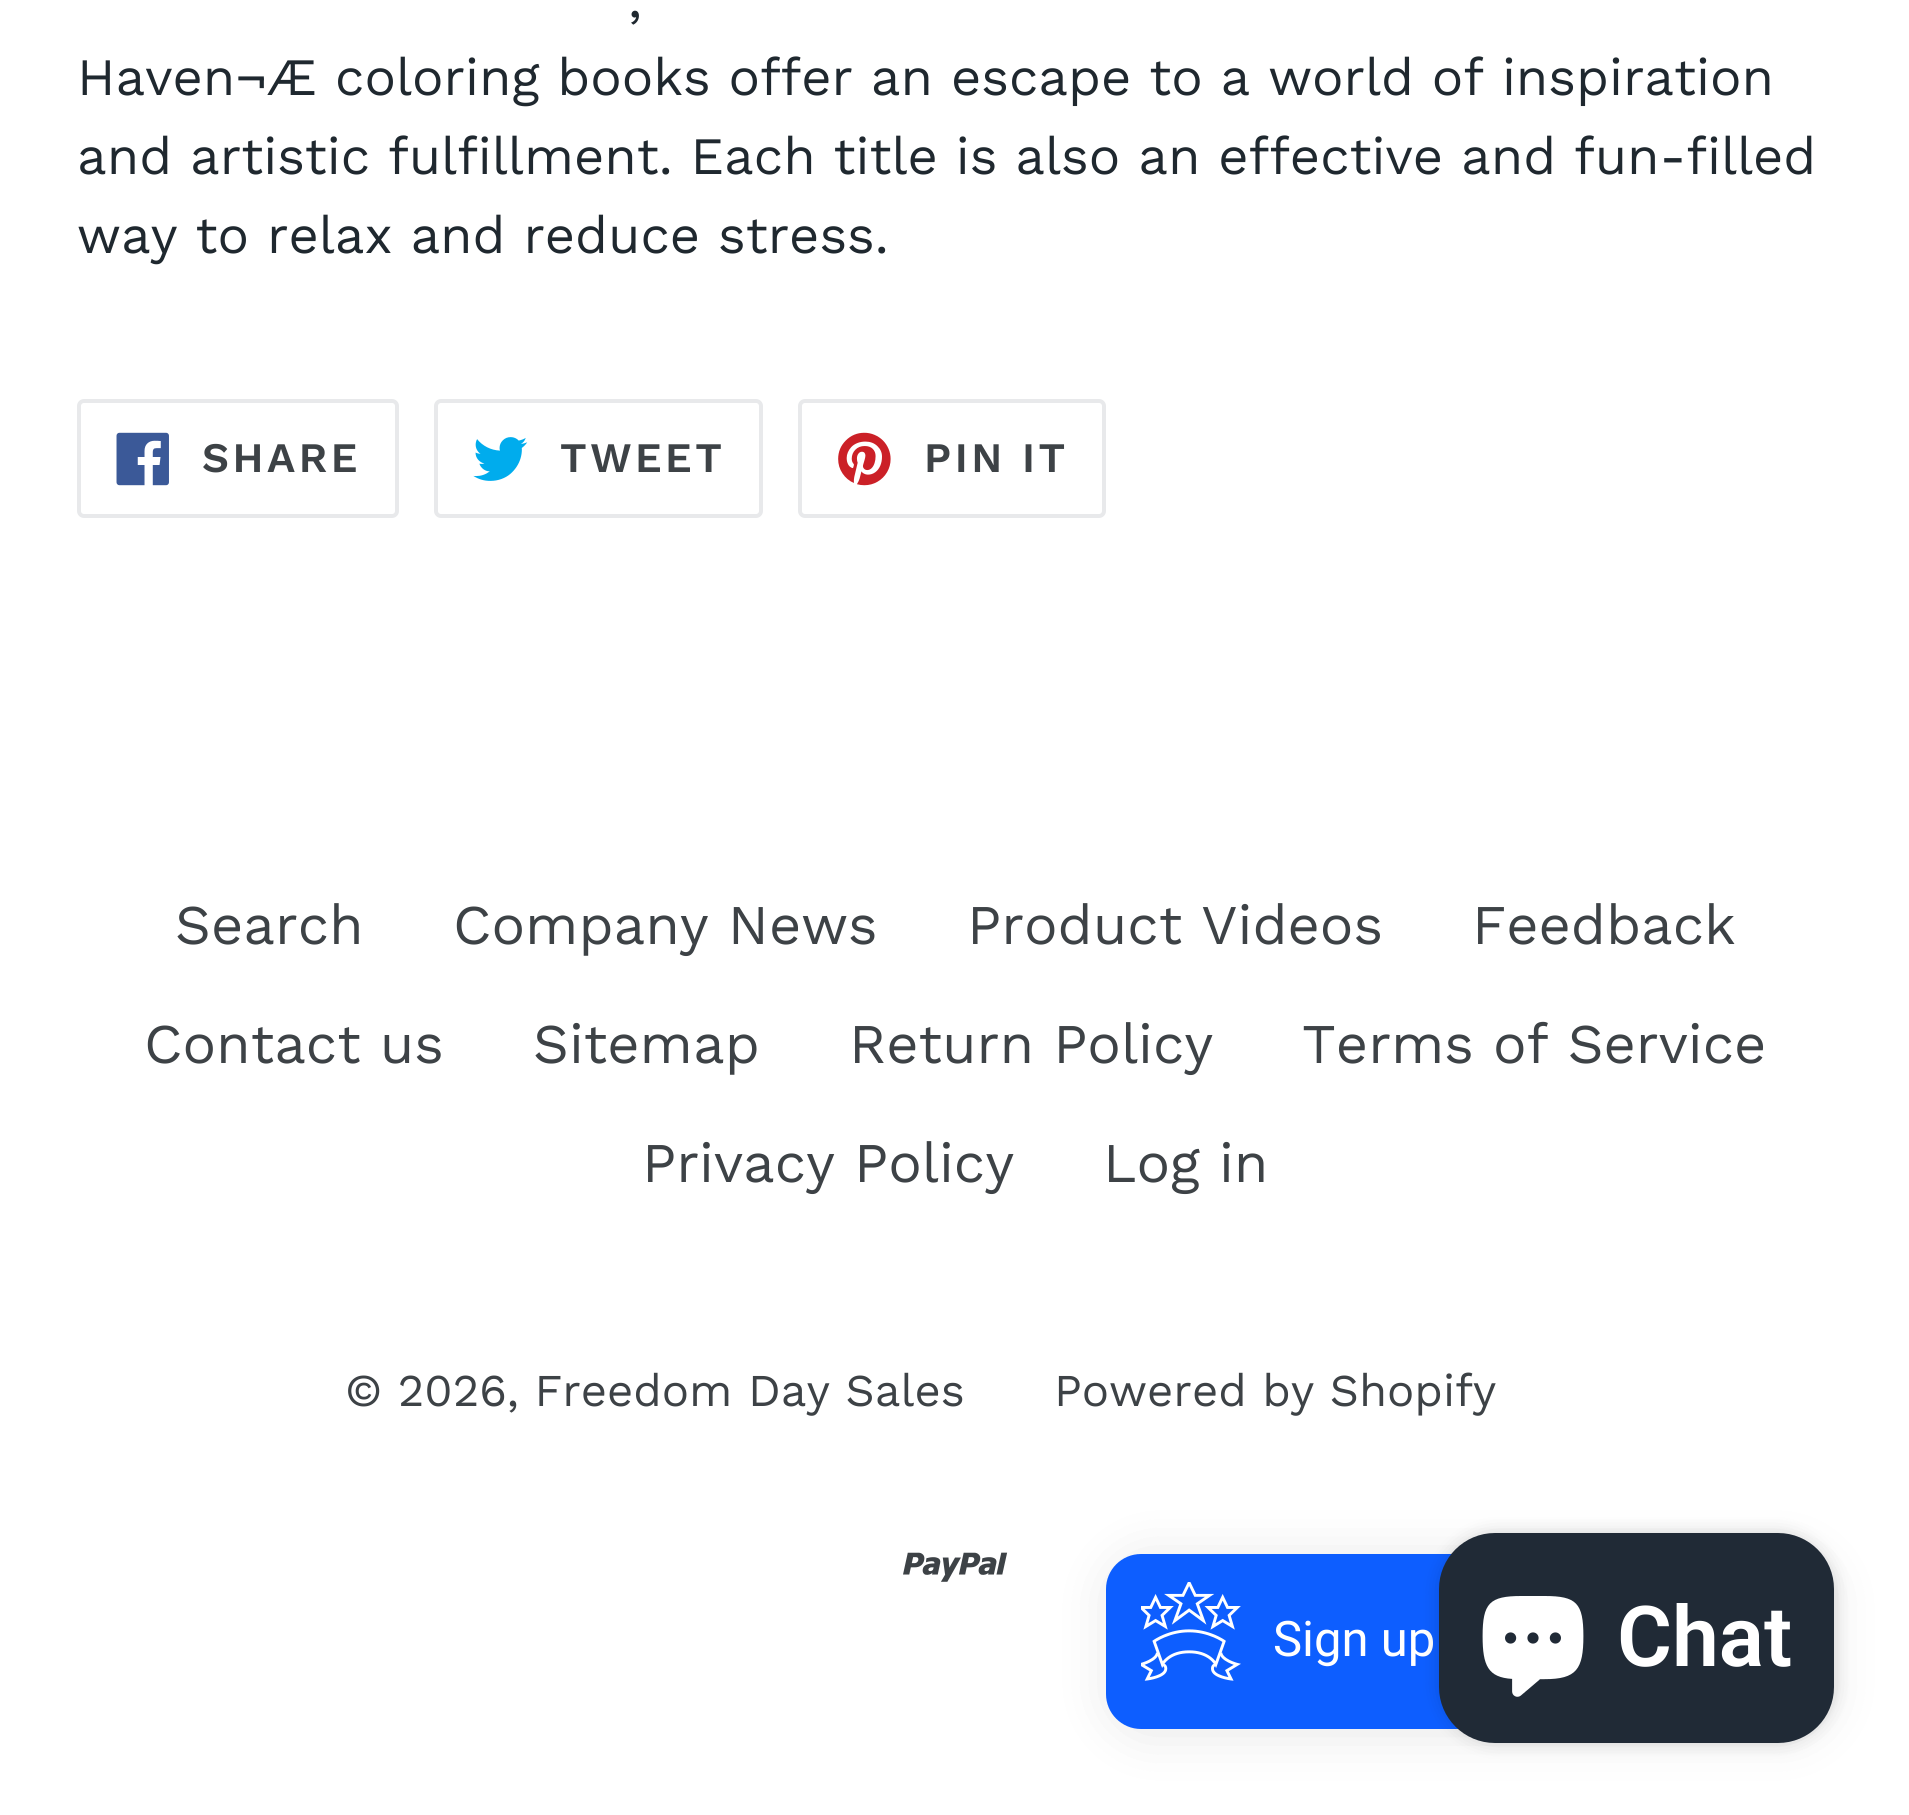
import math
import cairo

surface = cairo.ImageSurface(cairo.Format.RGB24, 1909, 1815)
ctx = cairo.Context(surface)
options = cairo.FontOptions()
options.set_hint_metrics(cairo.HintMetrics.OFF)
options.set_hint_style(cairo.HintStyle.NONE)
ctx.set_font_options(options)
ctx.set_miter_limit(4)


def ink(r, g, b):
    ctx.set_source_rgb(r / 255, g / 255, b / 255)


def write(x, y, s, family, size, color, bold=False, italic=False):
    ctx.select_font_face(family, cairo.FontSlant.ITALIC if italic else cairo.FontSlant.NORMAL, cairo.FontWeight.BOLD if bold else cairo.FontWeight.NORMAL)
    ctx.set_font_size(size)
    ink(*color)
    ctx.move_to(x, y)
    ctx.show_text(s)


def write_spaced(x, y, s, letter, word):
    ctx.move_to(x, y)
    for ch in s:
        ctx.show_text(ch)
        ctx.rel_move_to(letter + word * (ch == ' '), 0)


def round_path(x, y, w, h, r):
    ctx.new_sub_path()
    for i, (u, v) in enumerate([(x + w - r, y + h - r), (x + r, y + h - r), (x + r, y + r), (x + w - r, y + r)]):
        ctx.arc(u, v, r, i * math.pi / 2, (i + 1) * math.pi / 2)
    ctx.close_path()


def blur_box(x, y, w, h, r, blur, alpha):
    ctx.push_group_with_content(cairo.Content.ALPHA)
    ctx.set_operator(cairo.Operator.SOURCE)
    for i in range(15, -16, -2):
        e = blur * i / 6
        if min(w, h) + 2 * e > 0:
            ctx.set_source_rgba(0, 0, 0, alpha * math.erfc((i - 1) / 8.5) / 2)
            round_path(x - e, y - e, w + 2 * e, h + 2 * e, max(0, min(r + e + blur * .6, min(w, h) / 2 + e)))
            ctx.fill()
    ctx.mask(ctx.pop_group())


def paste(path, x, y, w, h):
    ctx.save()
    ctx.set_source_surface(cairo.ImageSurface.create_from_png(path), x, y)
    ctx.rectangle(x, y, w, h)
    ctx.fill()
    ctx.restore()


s1 = dict(family="Work Sans", size=52.5, color=(31, 40, 47))
s2 = dict(family="Work Sans", size=56, color=(61, 66, 70))
s3 = dict(family="Work Sans", size=45.5, color=(61, 66, 70))
s4 = dict(family="Roboto", size=49, color=(255, 255, 255))
s5 = dict(family="Roboto SemiBold", size=84, color=(255, 255, 255))

ink(255, 255, 255)
ctx.paint()
write(628, 17, ",", **s1)
write(77, 95, "Haven¬Æ coloring books offer an escape to a world of inspiration", **s1)
write(77, 174, "and artistic fulfillment. Each title is also an effective and fun-filled", **s1)
write(77, 253, "way to relax and reduce stress.", **s1)
round_path(79, 401, 318, 115, 5)
ink(232, 233, 235)
ctx.set_line_width(4)
ctx.stroke()
paste("pic1.png", 116, 432, 53, 54)
ctx.select_font_face("Work Sans SemiBold")
ctx.set_font_size(42)
ink(61, 66, 70)
write_spaced(202, 472, "SHARE", 3.5, 0)
round_path(436, 401, 325, 115, 5)
ink(232, 233, 235)
ctx.stroke()
paste("pic2.png", 473, 437, 55, 44)
ink(61, 66, 70)
write_spaced(560, 472, "TWEET", 3.5, 0)
round_path(800, 401, 304, 115, 5)
ink(232, 233, 235)
ctx.stroke()
paste("pic3.png", 838, 432, 53, 54)
ink(61, 66, 70)
write_spaced(924, 472, "PIN IT", 3.5, 0)
write(175, 944, "Search", **s2)
write(453, 944, "Company News", **s2)
write(967, 944, "Product Videos", **s2)
write(1472, 944, "Feedback", **s2)
write(144, 1063, "Contact us", **s2)
write(533, 1063, "Sitemap", **s2)
write(849, 1063, "Return Policy", **s2)
write(1302, 1063, "Terms of Service", **s2)
write(642, 1182, "Privacy Policy", **s2)
write(1103, 1182, "Log in", **s2)
write(345, 1406, "© 2026, Freedom Day Sales", **s3)
write(1054, 1406, "Powered by Shopify", **s3)
paste("pic4.png", 903, 1552, 105, 30)
ink(0, 0, 0)
blur_box(1110, 1558, 717, 175, 35, 26, 0.1)
ink(13, 94, 255)
round_path(1106, 1554, 718, 175, 35)
ctx.fill()
paste("pic5.png", 1141, 1582, 100, 99)
write(1273, 1656, "Sign up", **s4)
ink(0, 0, 0)
blur_box(1439, 1533, 395, 210, 56, 9, 0.15)
ink(32, 42, 54)
round_path(1439, 1533, 395, 210, 56)
ctx.fill()
paste("pic6.png", 1482, 1596, 102, 101)
write(1617, 1666, "Chat", **s5)
surface.write_to_png("screenshot.png")
